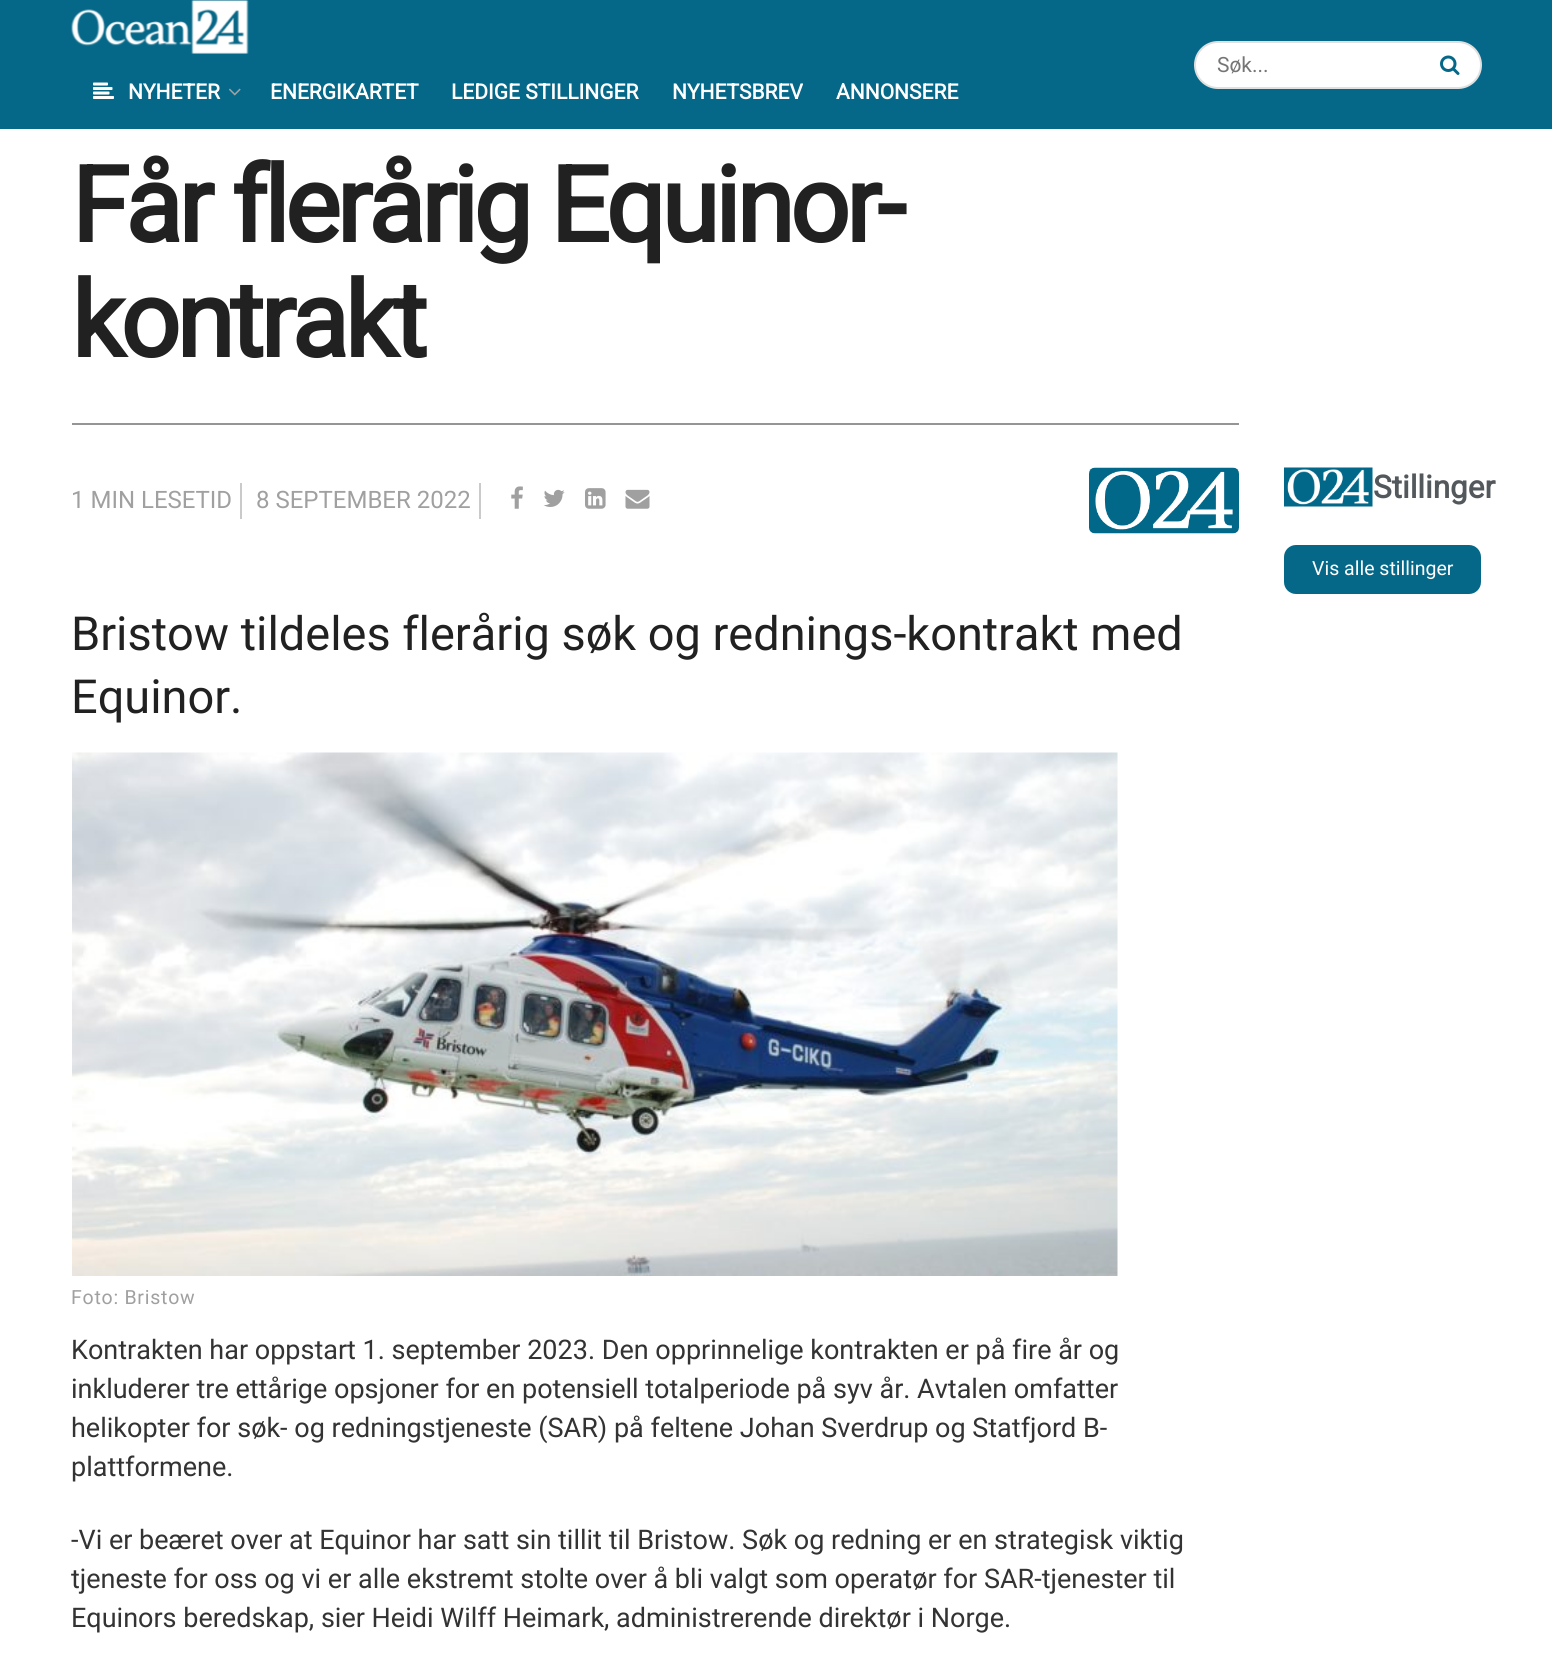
import math
import cairo

surface = cairo.ImageSurface(cairo.Format.RGB24, 1552, 1653)
ctx = cairo.Context(surface)
options = cairo.FontOptions()
options.set_hint_metrics(cairo.HintMetrics.OFF)
options.set_hint_style(cairo.HintStyle.NONE)
ctx.set_font_options(options)
ctx.set_miter_limit(4)


def ink(r, g, b):
    ctx.set_source_rgb(r / 255, g / 255, b / 255)


def write(x, y, s, family, size, color, bold=False, italic=False):
    ctx.select_font_face(family, cairo.FontSlant.ITALIC if italic else cairo.FontSlant.NORMAL, cairo.FontWeight.BOLD if bold else cairo.FontWeight.NORMAL)
    ctx.set_font_size(size)
    ink(*color)
    ctx.move_to(x, y)
    ctx.show_text(s)


def write_spaced(x, y, s, letter, word):
    ctx.move_to(x, y)
    for ch in s:
        ctx.show_text(ch)
        ctx.rel_move_to(letter + word * (ch == ' '), 0)


def block(x, y, w, h, *color):
    ink(*color)
    ctx.rectangle(x, y, w, h)
    ctx.fill()


def round_path(x, y, w, h, r):
    ctx.new_sub_path()
    for i, (u, v) in enumerate([(x + w - r, y + h - r), (x + r, y + h - r), (x + r, y + r), (x + w - r, y + r)]):
        ctx.arc(u, v, r, i * math.pi / 2, (i + 1) * math.pi / 2)
    ctx.close_path()


def paste(path, x, y, w, h):
    ctx.save()
    ctx.set_source_surface(cairo.ImageSurface.create_from_png(path), x, y)
    ctx.rectangle(x, y, w, h)
    ctx.fill()
    ctx.restore()


s1 = dict(family="Roboto", size=21, color=(117, 117, 117))
s2 = dict(family="Roboto", size=21, color=(255, 255, 255), bold=True)
s3 = dict(family="Roboto", size=24, color=(160, 160, 160))
s4 = dict(family="Roboto", size=46.9, color=(33, 33, 33))
s5 = dict(family="Roboto", size=27, color=(51, 51, 51))
s6 = dict(family="Roboto", size=31.5, color=(83, 88, 92), bold=True)
s7 = dict(family="Roboto", size=19.5, color=(255, 255, 255))

ink(255, 255, 255)
ctx.paint()
block(0, 0, 1552, 129, 6, 104, 136)
ink(255, 255, 255)
round_path(1195, 42, 286, 46, 23)
ctx.fill_preserve()
ink(224, 224, 224)
ctx.stroke()
write(1217, 72, "Søk...", **s1)
paste("pic1.png", 1440, 55, 20, 20)
paste("pic2.png", 71, 0, 178, 54)
paste("pic3.png", 93, 82, 21, 17)
write(128, 99, "NYHETER", **s2)
paste("pic4.png", 229, 88, 12, 8)
write(270, 99, "ENERGIKARTET", **s2)
write(451, 99, "LEDIGE STILLINGER", **s2)
write(672, 99, "NYHETSBREV", **s2)
write(836, 99, "ANNONSERE", **s2)
ctx.set_font_size(105)
ink(33, 33, 33)
write_spaced(71, 242, "Får flerårig Equinor-", -4.2, 0)
write_spaced(71, 357, "kontrakt", -4.2, 0)
block(72, 423, 1167, 2, 149, 149, 149)
block(240, 483, 2, 36, 202, 202, 202)
write(71, 508, "1 MIN LESETID", **s3)
block(479, 483, 2, 36, 202, 202, 202)
write(256, 508, "8 SEPTEMBER 2022", **s3)
paste("pic5.png", 511, 486, 12, 23)
paste("pic6.png", 543, 489, 22, 18)
paste("pic7.png", 585, 488, 21, 21)
paste("pic8.png", 625, 489, 25, 20)
paste("pic9.png", 1089, 467, 150, 67)
write(71, 650, "Bristow tildeles flerårig søk og rednings-kontrakt med", **s4)
write(71, 713, "Equinor.", **s4)
paste("pic10.png", 72, 752, 1046, 524)
ctx.set_font_size(19.5)
ink(160, 160, 160)
write_spaced(71, 1304, "Foto: Bristow", 0.75, 0)
write(71, 1359, "Kontrakten har oppstart 1. september 2023. Den opprinnelige kontrakten er på fire år og", **s5)
write(71, 1398, "inkluderer tre ettårige opsjoner for en potensiell totalperiode på syv år. Avtalen omfatter", **s5)
write(71, 1437, "helikopter for søk- og redningstjeneste (SAR) på feltene Johan Sverdrup og Statfjord B-", **s5)
write(71, 1476, "plattformene.", **s5)
write(71, 1549, "-Vi er beæret over at Equinor har satt sin tillit til Bristow. Søk og redning er en strategisk viktig", **s5)
write(71, 1588, "tjeneste for oss og vi er alle ekstremt stolte over å bli valgt som operatør for SAR-tjenester til", **s5)
write(71, 1627, "Equinors beredskap, sier Heidi Wilff Heimark, administrerende direktør i Norge.", **s5)
paste("pic11.png", 1284, 467, 89, 40)
write(1373, 498, "Stillinger", **s6)
ink(6, 104, 136)
round_path(1284, 545, 197, 49, 12)
ctx.fill()
write(1312, 575, "Vis alle stillinger", **s7)
surface.write_to_png("screenshot.png")
